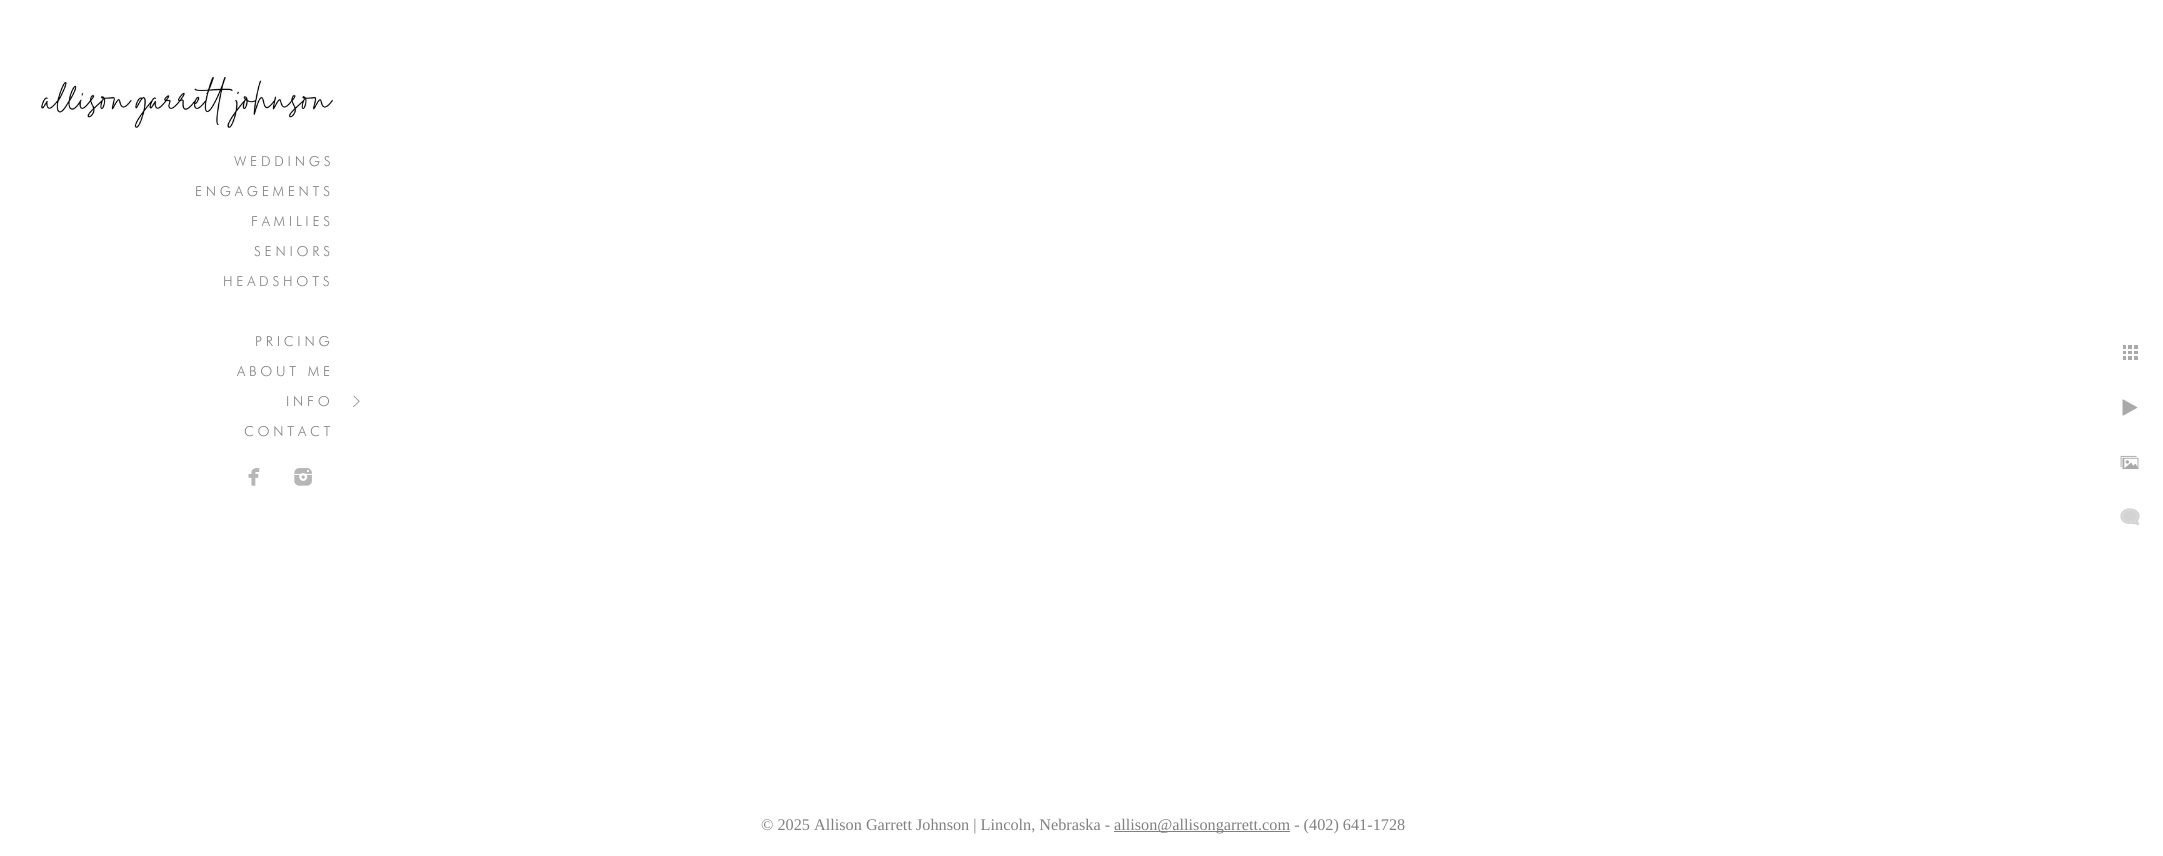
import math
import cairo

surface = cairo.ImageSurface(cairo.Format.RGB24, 2163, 856)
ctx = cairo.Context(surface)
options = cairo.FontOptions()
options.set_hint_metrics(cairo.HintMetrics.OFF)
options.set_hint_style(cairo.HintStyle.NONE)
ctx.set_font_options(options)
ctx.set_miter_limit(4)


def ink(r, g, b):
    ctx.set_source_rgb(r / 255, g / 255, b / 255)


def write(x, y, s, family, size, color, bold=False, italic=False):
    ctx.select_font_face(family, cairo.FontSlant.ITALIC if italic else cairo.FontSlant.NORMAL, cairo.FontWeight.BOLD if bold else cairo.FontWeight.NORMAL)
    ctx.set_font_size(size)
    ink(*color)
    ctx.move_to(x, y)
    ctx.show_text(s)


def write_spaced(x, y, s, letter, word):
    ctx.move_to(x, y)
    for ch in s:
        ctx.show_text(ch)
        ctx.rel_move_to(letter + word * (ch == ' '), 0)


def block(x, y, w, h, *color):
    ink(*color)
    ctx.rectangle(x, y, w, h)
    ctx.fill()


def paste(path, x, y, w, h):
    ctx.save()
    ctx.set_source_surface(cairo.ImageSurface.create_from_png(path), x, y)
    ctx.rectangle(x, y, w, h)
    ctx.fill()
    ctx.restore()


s1 = dict(family="Liberation Serif", size=16.25, color=(128, 128, 128))

ink(255, 255, 255)
ctx.paint()
paste("pic1.png", 41, 76, 292, 53)
ctx.select_font_face("Futura Black")
ctx.set_font_size(13.75)
ink(128, 128, 128)
write_spaced(234, 166, "WEDDINGS", 3.75, 0)
write_spaced(195, 196, "ENGAGEMENTS", 3.75, 0)
write_spaced(251, 226, "FAMILIES", 3.75, 0)
write_spaced(254, 256, "SENIORS", 3.75, 0)
write_spaced(223, 286, "HEADSHOTS", 3.75, 0)
write_spaced(255, 346, "PRICING", 3.75, 0)
write_spaced(237, 376, "ABOUT ME", 3.75, 0)
write_spaced(286, 406, "INFO", 3.75, 0)
paste("pic2.png", 353, 395, 7, 13)
write_spaced(244, 436, "CONTACT", 3.75, 0)
paste("pic3.png", 248, 468, 12, 18)
paste("pic4.png", 294, 468, 18, 18)
paste("pic5.png", 2123, 345, 15, 15)
paste("pic6.png", 2122, 399, 16, 17)
paste("pic7.png", 2120, 455, 19, 15)
paste("pic8.png", 2120, 508, 20, 17)
write(761, 830, "© 2025 Allison Garrett Johnson | Lincoln, Nebraska -", **s1)
block(1114, 831, 176, 1, 128, 128, 128)
write(1114, 830, "allison@allisongarrett.com - (402) 641-1728", **s1)
surface.write_to_png("screenshot.png")
